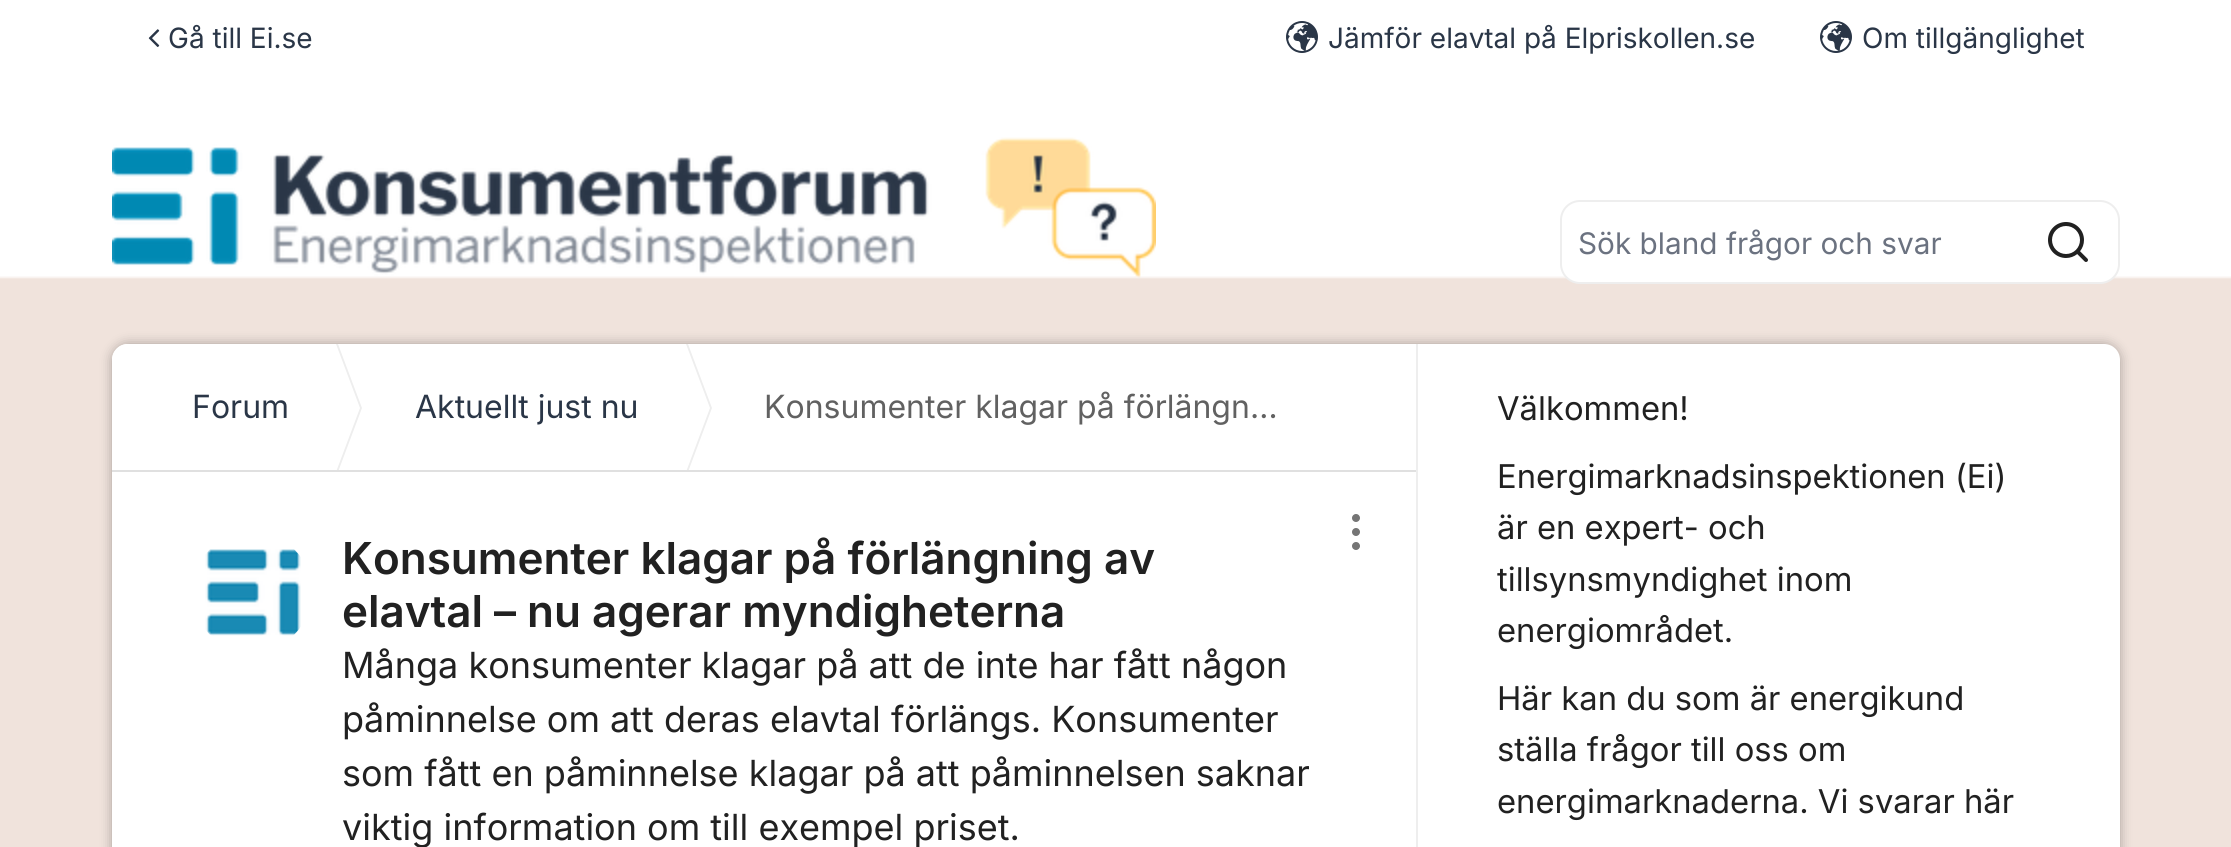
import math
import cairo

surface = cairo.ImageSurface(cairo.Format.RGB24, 2231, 847)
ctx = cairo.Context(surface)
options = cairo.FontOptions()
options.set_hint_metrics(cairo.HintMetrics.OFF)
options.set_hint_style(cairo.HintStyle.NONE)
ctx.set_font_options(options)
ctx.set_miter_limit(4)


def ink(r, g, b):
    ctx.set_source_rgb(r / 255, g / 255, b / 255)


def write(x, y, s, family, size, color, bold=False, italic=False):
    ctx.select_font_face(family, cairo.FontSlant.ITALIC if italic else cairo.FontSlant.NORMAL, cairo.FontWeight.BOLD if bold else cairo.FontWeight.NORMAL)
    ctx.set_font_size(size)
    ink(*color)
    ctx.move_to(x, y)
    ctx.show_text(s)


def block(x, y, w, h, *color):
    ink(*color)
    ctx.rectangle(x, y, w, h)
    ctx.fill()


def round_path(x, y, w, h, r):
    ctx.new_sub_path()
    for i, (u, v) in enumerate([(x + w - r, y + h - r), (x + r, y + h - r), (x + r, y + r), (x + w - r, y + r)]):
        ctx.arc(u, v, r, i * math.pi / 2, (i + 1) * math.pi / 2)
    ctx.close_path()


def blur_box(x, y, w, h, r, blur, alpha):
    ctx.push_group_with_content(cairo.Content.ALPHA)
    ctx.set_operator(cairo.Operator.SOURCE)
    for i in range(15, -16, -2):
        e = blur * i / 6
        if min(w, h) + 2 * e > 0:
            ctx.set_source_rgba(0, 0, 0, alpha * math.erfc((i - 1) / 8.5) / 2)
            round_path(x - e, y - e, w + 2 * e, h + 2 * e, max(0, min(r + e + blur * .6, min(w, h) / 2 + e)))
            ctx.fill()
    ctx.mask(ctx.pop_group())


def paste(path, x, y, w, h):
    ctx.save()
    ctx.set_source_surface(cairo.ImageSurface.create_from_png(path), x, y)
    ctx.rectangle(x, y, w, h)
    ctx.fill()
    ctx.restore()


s1 = dict(family="Inter", size=28, color=(42, 54, 71))
s2 = dict(family="Inter", size=29.75, color=(107, 114, 128))
s3 = dict(family="Inter", size=32, color=(42, 54, 71))
s4 = dict(family="Inter", size=32, color=(97, 97, 97))
s5 = dict(family="Inter SemiBold", size=44, color=(33, 33, 33))
s6 = dict(family="Inter", size=36, color=(33, 33, 33))
s7 = dict(family="Inter", size=32.75, color=(33, 33, 33))

ink(255, 255, 255)
ctx.paint()
paste("pic1.png", 148, 29, 12, 18)
write(168, 48, "Gå till Ei.se", **s1)
paste("pic2.png", 1286, 21, 32, 32)
write(1328, 48, "Jämför elavtal på Elpriskollen.se", **s1)
paste("pic2.png", 1820, 21, 32, 32)
write(1862, 48, "Om tillgänglighet", **s1)
paste("pic3.png", 0, 276, 2231, 158)
paste("pic4.png", 112, 137, 1044, 141)
ink(255, 255, 255)
round_path(1561, 201, 558, 82, 19)
ctx.fill_preserve()
ink(238, 238, 238)
ctx.stroke()
write(1578, 254, "Sök bland frågor och svar", **s2)
paste("pic5.png", 2048, 222, 40, 40)
block(0, 434, 2231, 413, 240, 227, 220)
ink(0, 0, 0)
blur_box(112, 344, 2008, 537, 16, 6, 0.3)
ink(255, 255, 255)
ctx.new_path()
ctx.move_to(128, 344)
ctx.line_to(2104, 344)
ctx.curve_to(2113, 344, 2120, 351, 2120, 360)
ctx.line_to(2120, 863)
ctx.line_to(112, 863)
ctx.line_to(112, 360)
ctx.curve_to(112, 351, 119, 344, 128, 344)
ctx.close_path()
ctx.fill()
round_path(112, 344, 1306, 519, 16)
ctx.fill()
block(112, 470, 1306, 2, 224, 224, 224)
ctx.save()
ctx.rectangle(112, 344, 1306, 126)
ctx.clip()
ink(238, 238, 238)
ctx.new_path()
ctx.move_to(332, 488)
ctx.line_to(332, 328)
ctx.line_to(362, 408)
ctx.close_path()
ctx.fill()
ink(255, 255, 255)
ctx.new_path()
ctx.move_to(330, 488)
ctx.line_to(330, 328)
ctx.line_to(360, 408)
ctx.close_path()
ctx.fill()
ctx.restore()
write(192, 418, "Forum", **s3)
ctx.save()
ctx.rectangle(112, 344, 1306, 126)
ctx.clip()
ink(238, 238, 238)
ctx.new_path()
ctx.move_to(682, 488)
ctx.line_to(682, 328)
ctx.line_to(712, 408)
ctx.close_path()
ctx.fill()
ink(255, 255, 255)
ctx.new_path()
ctx.move_to(680, 488)
ctx.line_to(680, 328)
ctx.line_to(710, 408)
ctx.close_path()
ctx.fill()
ctx.restore()
write(415, 418, "Aktuellt just nu", **s3)
write(764, 418, "Konsumenter klagar på förlängn…", **s4)
paste("pic6.png", 1352, 514, 8, 36)
paste("pic7.png", 205, 549, 96, 87)
write(342, 574, "Konsumenter klagar på förlängning av", **s5)
write(342, 627, "elavtal – nu agerar myndigheterna", **s5)
write(342, 678, "Många konsumenter klagar på att de inte har fått någon", **s6)
write(342, 732, "påminnelse om att deras elavtal förlängs. Konsumenter", **s6)
write(342, 786, "som fått en påminnelse klagar på att påminnelsen saknar", **s6)
write(342, 840, "viktig information om till exempel priset.", **s6)
block(1416, 344, 2, 503, 238, 238, 238)
write(1497, 420, "Välkommen!", **s7)
write(1497, 488, "Energimarknadsinspektionen (Ei)", **s7)
write(1497, 539, "är en expert- och", **s7)
write(1497, 591, "tillsynsmyndighet inom", **s7)
write(1497, 642, "energiområdet.", **s7)
write(1497, 710, "Här kan du som är energikund", **s7)
write(1497, 761, "ställa frågor till oss om", **s7)
write(1497, 813, "energimarknaderna. Vi svarar här", **s7)
surface.write_to_png("screenshot.png")
